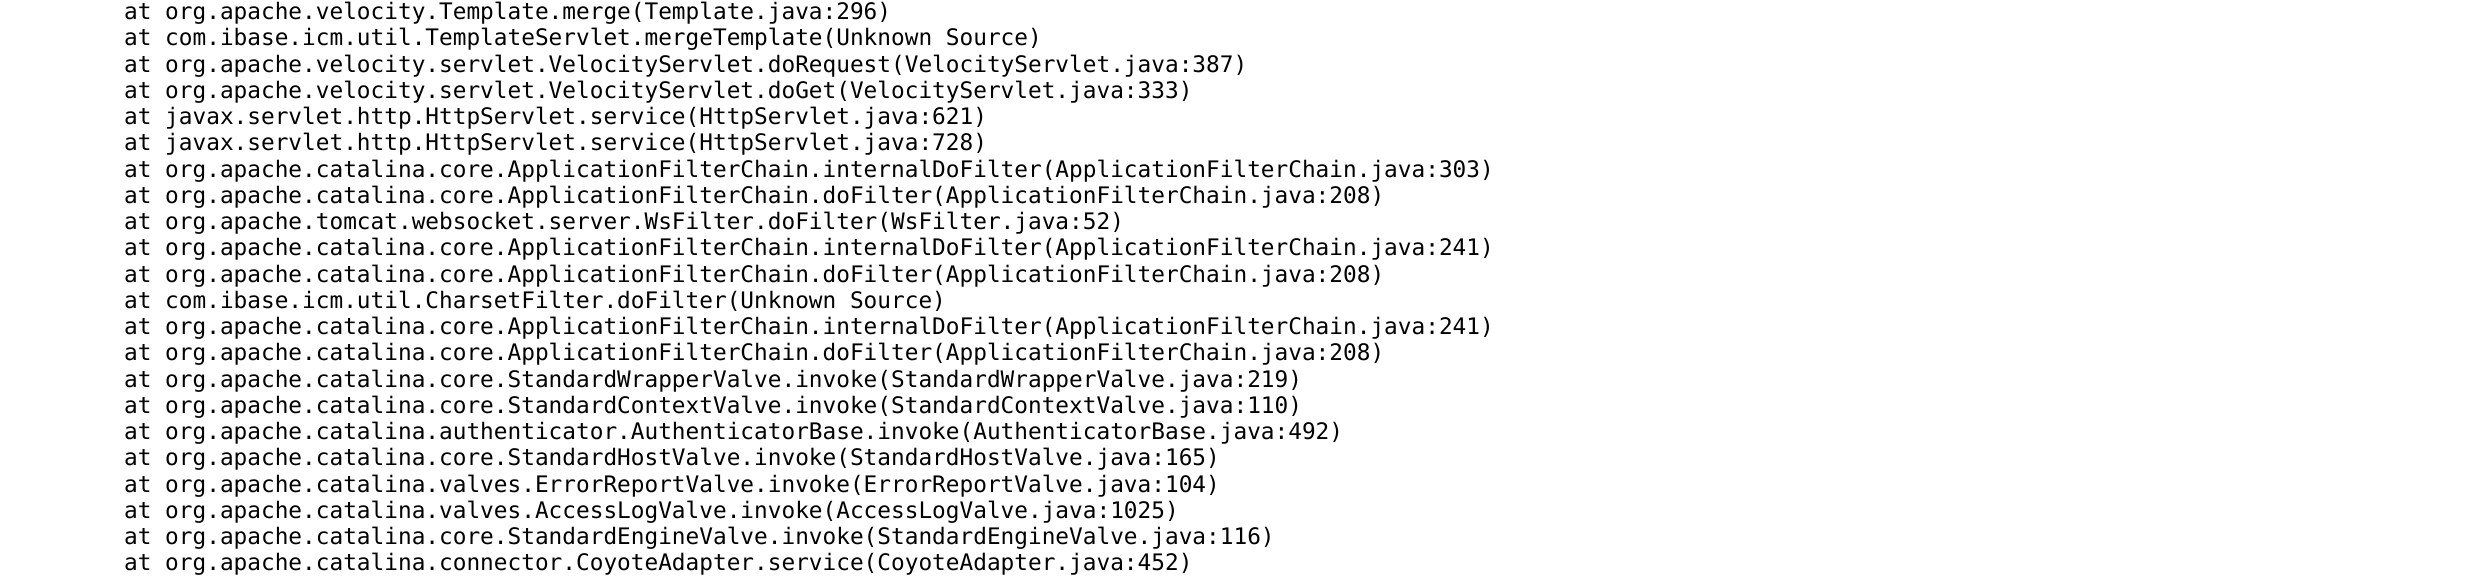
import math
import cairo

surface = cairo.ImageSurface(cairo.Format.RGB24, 2488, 577)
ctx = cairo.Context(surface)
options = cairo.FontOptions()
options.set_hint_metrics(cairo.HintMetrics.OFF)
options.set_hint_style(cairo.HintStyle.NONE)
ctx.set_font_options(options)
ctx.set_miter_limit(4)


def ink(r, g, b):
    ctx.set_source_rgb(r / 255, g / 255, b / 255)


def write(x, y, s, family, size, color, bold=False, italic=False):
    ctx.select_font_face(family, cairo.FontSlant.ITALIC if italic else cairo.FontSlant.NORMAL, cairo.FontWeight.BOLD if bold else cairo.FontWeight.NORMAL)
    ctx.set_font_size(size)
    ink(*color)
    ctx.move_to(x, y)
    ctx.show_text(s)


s1 = dict(family="DejaVu Sans Mono", size=22.75, color=(0, 0, 0))

ink(255, 255, 255)
ctx.paint()
write(124, 19, "at org.apache.velocity.Template.merge(Template.java:296)", **s1)
write(124, 45, "at com.ibase.icm.util.TemplateServlet.mergeTemplate(Unknown Source)", **s1)
write(124, 72, "at org.apache.velocity.servlet.VelocityServlet.doRequest(VelocityServlet.java:387)", **s1)
write(124, 98, "at org.apache.velocity.servlet.VelocityServlet.doGet(VelocityServlet.java:333)", **s1)
write(124, 124, "at javax.servlet.http.HttpServlet.service(HttpServlet.java:621)", **s1)
write(124, 150, "at javax.servlet.http.HttpServlet.service(HttpServlet.java:728)", **s1)
write(124, 177, "at org.apache.catalina.core.ApplicationFilterChain.internalDoFilter(ApplicationFilterChain.java:303)", **s1)
write(124, 203, "at org.apache.catalina.core.ApplicationFilterChain.doFilter(ApplicationFilterChain.java:208)", **s1)
write(124, 229, "at org.apache.tomcat.websocket.server.WsFilter.doFilter(WsFilter.java:52)", **s1)
write(124, 255, "at org.apache.catalina.core.ApplicationFilterChain.internalDoFilter(ApplicationFilterChain.java:241)", **s1)
write(124, 282, "at org.apache.catalina.core.ApplicationFilterChain.doFilter(ApplicationFilterChain.java:208)", **s1)
write(124, 308, "at com.ibase.icm.util.CharsetFilter.doFilter(Unknown Source)", **s1)
write(124, 334, "at org.apache.catalina.core.ApplicationFilterChain.internalDoFilter(ApplicationFilterChain.java:241)", **s1)
write(124, 360, "at org.apache.catalina.core.ApplicationFilterChain.doFilter(ApplicationFilterChain.java:208)", **s1)
write(124, 387, "at org.apache.catalina.core.StandardWrapperValve.invoke(StandardWrapperValve.java:219)", **s1)
write(124, 413, "at org.apache.catalina.core.StandardContextValve.invoke(StandardContextValve.java:110)", **s1)
write(124, 439, "at org.apache.catalina.authenticator.AuthenticatorBase.invoke(AuthenticatorBase.java:492)", **s1)
write(124, 465, "at org.apache.catalina.core.StandardHostValve.invoke(StandardHostValve.java:165)", **s1)
write(124, 492, "at org.apache.catalina.valves.ErrorReportValve.invoke(ErrorReportValve.java:104)", **s1)
write(124, 518, "at org.apache.catalina.valves.AccessLogValve.invoke(AccessLogValve.java:1025)", **s1)
write(124, 544, "at org.apache.catalina.core.StandardEngineValve.invoke(StandardEngineValve.java:116)", **s1)
write(124, 570, "at org.apache.catalina.connector.CoyoteAdapter.service(CoyoteAdapter.java:452)", **s1)
surface.write_to_png("screenshot.png")
